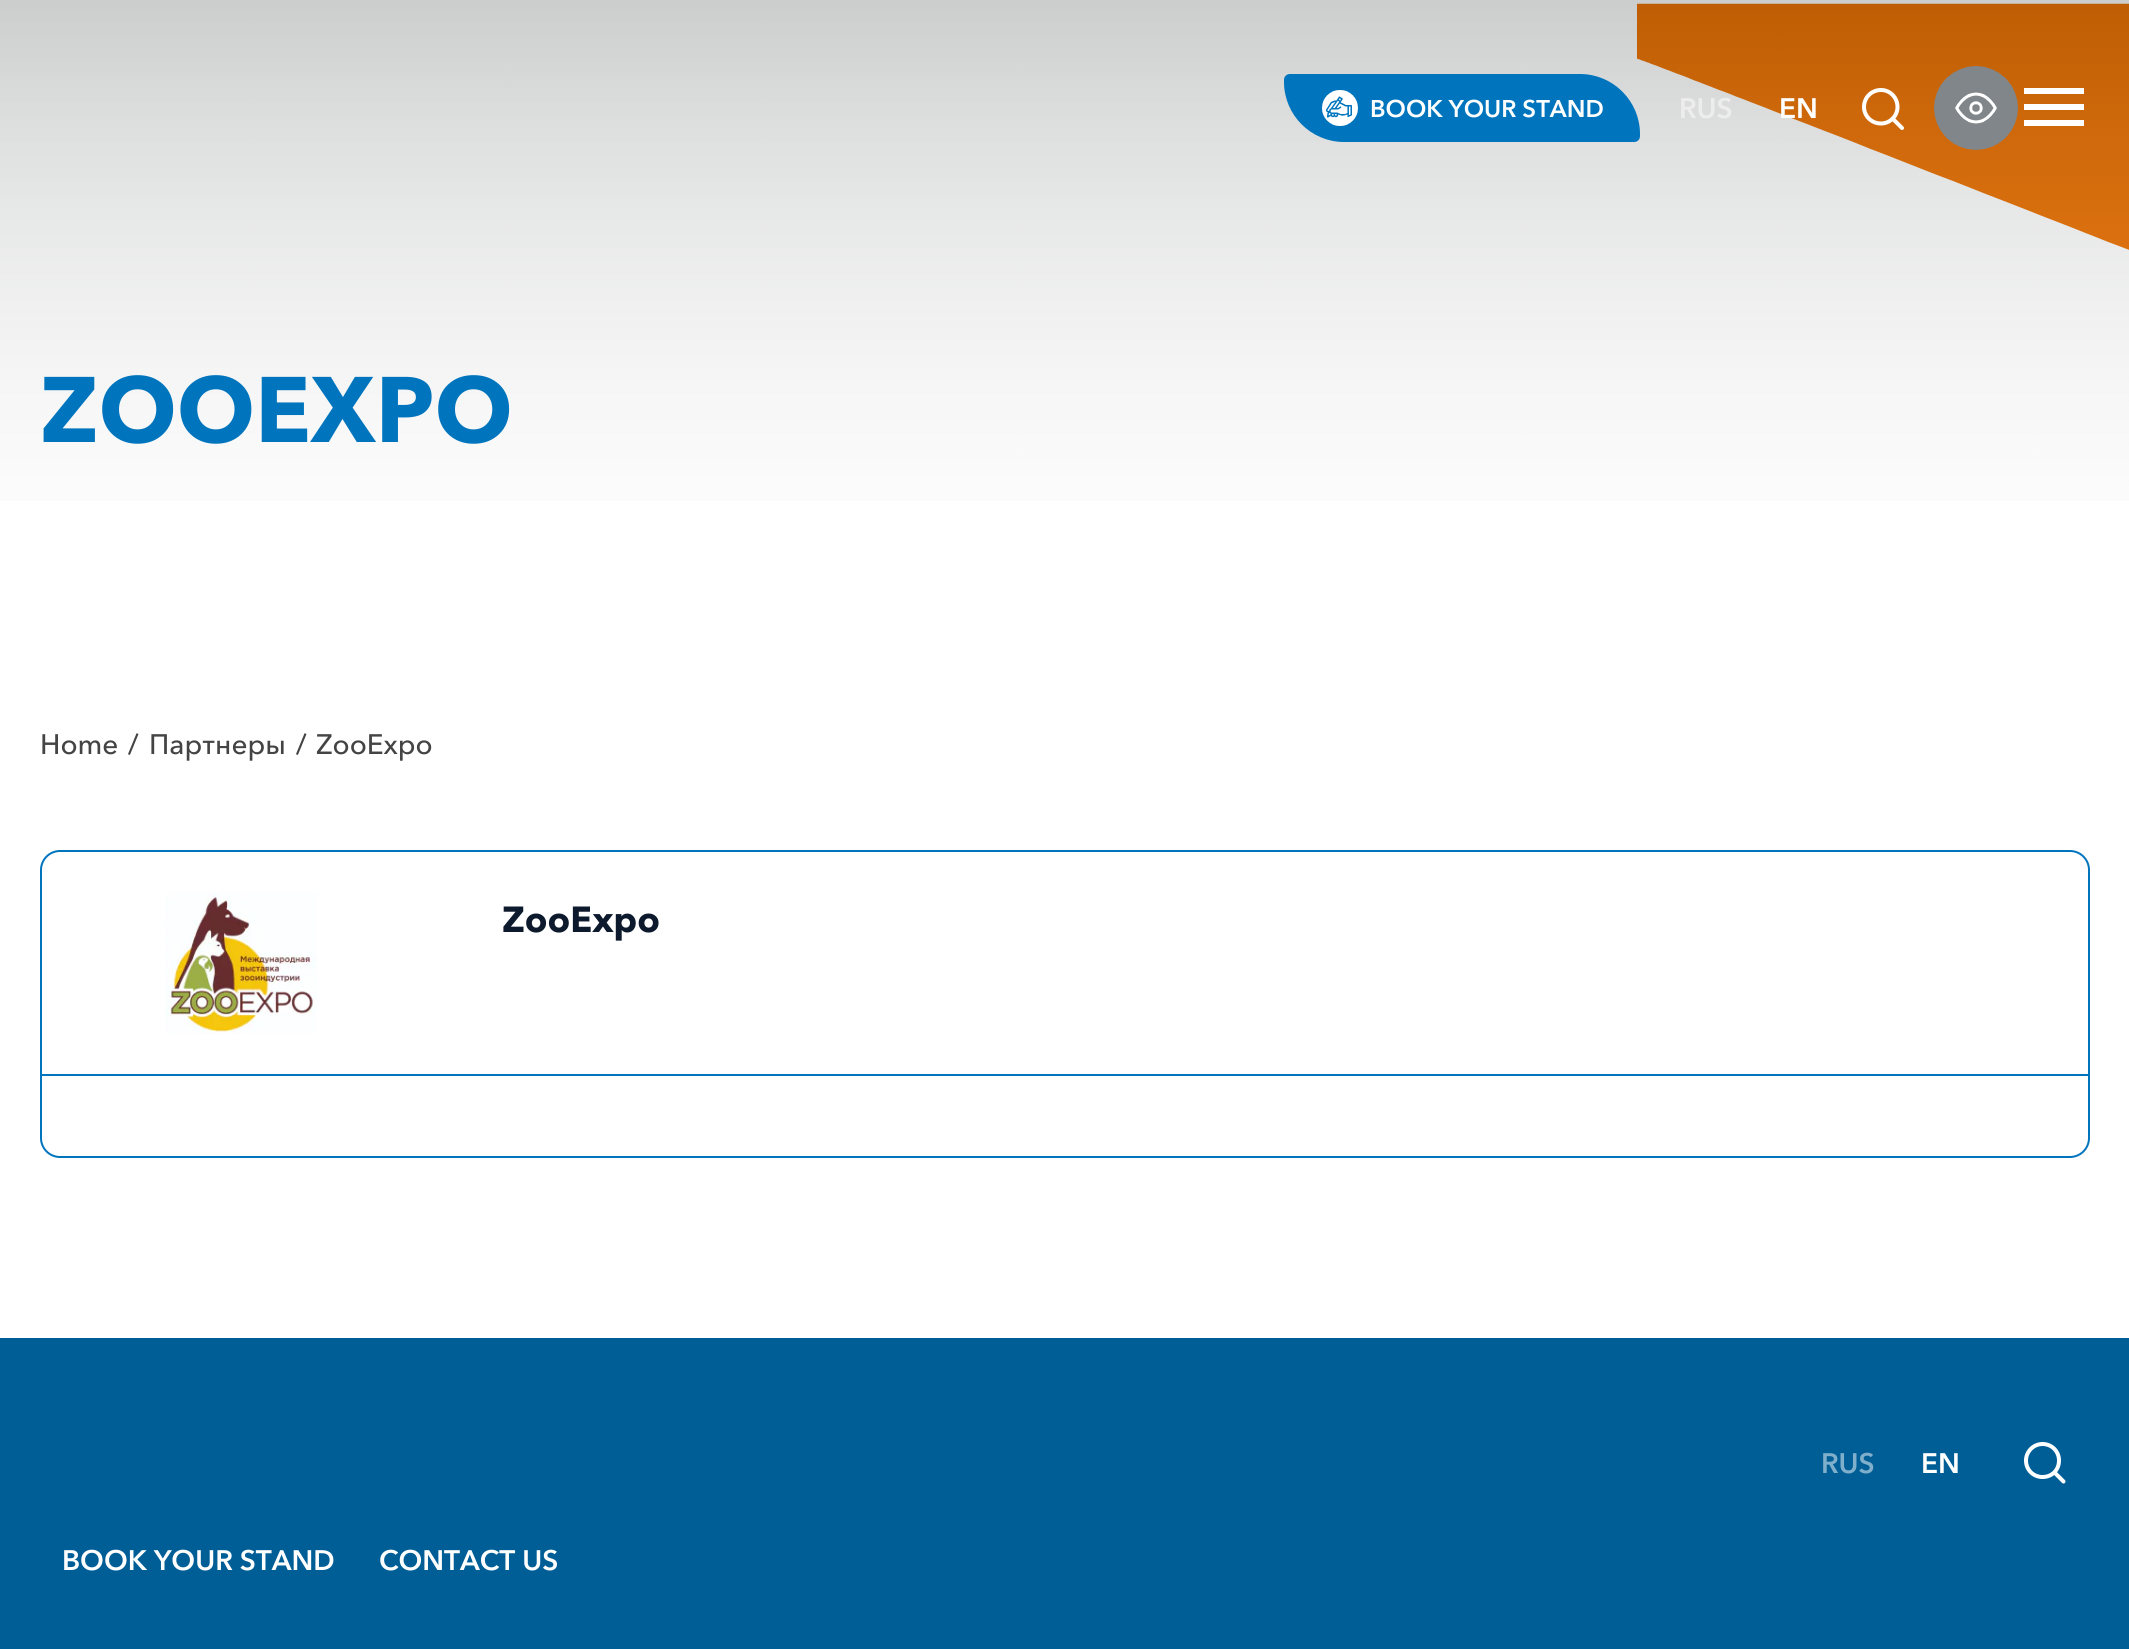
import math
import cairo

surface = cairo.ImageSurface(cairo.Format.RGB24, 2129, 1649)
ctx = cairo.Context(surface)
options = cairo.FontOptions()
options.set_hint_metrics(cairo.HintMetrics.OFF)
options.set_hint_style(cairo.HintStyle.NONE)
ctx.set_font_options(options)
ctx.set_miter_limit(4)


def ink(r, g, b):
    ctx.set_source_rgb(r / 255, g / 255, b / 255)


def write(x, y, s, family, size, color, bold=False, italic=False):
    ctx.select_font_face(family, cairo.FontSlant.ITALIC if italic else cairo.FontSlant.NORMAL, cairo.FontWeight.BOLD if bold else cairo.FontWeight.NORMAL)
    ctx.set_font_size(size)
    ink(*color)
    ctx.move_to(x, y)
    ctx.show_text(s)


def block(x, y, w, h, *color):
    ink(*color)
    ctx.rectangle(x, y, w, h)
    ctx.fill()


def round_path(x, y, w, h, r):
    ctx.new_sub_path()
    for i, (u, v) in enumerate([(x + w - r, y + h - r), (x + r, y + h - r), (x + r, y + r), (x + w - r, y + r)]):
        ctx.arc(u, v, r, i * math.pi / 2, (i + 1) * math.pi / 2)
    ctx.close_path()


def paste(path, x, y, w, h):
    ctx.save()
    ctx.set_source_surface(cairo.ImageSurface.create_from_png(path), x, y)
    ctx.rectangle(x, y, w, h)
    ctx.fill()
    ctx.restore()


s1 = dict(family="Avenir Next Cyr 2", size=24, color=(255, 255, 255), bold=True)
s2 = dict(family="Avenir Next Cyr 2", size=28, color=(237, 237, 237), bold=True)
s3 = dict(family="Avenir Next Cyr 2", size=28, color=(255, 255, 255), bold=True)
s4 = dict(family="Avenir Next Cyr", size=92, color=(0, 117, 190), bold=True)
s5 = dict(family="Avenir Next Cyr Medium", size=28, color=(68, 68, 68))
s6 = dict(family="Avenir Next Cyr", size=36, color=(13, 25, 44), bold=True)
s7 = dict(family="Avenir Next Cyr 2", size=28, color=(128, 175, 203), bold=True)

ink(255, 255, 255)
ctx.paint()
paste("pic1.png", 0, 0, 2129, 501)
ink(0, 117, 190)
ctx.new_path()
ctx.move_to(1290, 74)
ctx.line_to(1580, 74)
ctx.curve_to(1613, 74, 1640, 101, 1640, 134)
ctx.line_to(1640, 136)
ctx.curve_to(1640, 139.5, 1637.5, 142, 1634, 142)
ctx.line_to(1344, 142)
ctx.curve_to(1311, 142, 1284, 115, 1284, 82)
ctx.line_to(1284, 80)
ctx.curve_to(1284, 76.5, 1286.5, 74, 1290, 74)
ctx.close_path()
ctx.fill()
paste("pic2.png", 1322, 90, 36, 36)
write(1370, 117, "BOOK YOUR STAND", **s1)
write(1679, 118, "RUS", **s2)
write(1779, 118, "EN", **s3)
ctx.new_path()
ctx.move_to(1881, 123.5)
ctx.curve_to(1890, 123.5, 1897.5, 116, 1897.5, 107)
ctx.curve_to(1897.5, 97.5, 1890, 90, 1881, 90)
ctx.curve_to(1871.5, 90, 1864, 97.5, 1864, 107)
ctx.curve_to(1864, 116, 1871.5, 123.5, 1881, 123.5)
ctx.close_path()
ctx.move_to(1902, 128)
ctx.line_to(1892.5, 118.5)
ctx.set_line_width(4)
ctx.set_line_cap(cairo.LineCap.ROUND)
ctx.set_line_join(cairo.LineJoin.ROUND)
ctx.stroke()
paste("pic3.png", 1934, 66, 84, 84)
block(2024, 88, 60, 6, 255, 255, 255)
block(2024, 104, 60, 6, 255, 255, 255)
block(2024, 120, 60, 6, 255, 255, 255)
write(40, 442, "ZOOEXPO", **s4)
write(40, 754, "Home", **s5)
write(128, 754, "/", **s5)
write(149, 754, "Партнеры", **s5)
write(296, 754, "/", **s5)
write(316, 754, "ZooExpo", **s5)
round_path(41, 851, 2048, 306, 19)
ink(0, 117, 190)
ctx.set_line_width(2)
ctx.set_line_cap(cairo.LineCap.BUTT)
ctx.set_line_join(cairo.LineJoin.MITER)
ctx.stroke()
paste("pic4.png", 165, 892, 152, 142)
write(502, 932, "ZooExpo", **s6)
block(42, 1074, 2046, 2, 0, 117, 190)
block(0, 1338, 2129, 311, 0, 94, 151)
write(1821, 1473, "RUS", **s7)
write(1921, 1473, "EN", **s3)
ctx.new_path()
ctx.move_to(2042.5, 1477)
ctx.curve_to(2052, 1477, 2059, 1470, 2059, 1460.5)
ctx.curve_to(2059, 1451.5, 2052, 1444, 2042.5, 1444)
ctx.curve_to(2033.5, 1444, 2026, 1451.5, 2026, 1460.5)
ctx.curve_to(2026, 1470, 2033.5, 1477, 2042.5, 1477)
ctx.close_path()
ctx.move_to(2063.5, 1481.5)
ctx.line_to(2054.5, 1472.5)
ctx.set_line_width(4)
ctx.set_line_cap(cairo.LineCap.ROUND)
ctx.set_line_join(cairo.LineJoin.ROUND)
ctx.stroke()
write(62, 1570, "BOOK YOUR STAND", **s3)
write(379, 1570, "CONTACT US", **s3)
surface.write_to_png("screenshot.png")
